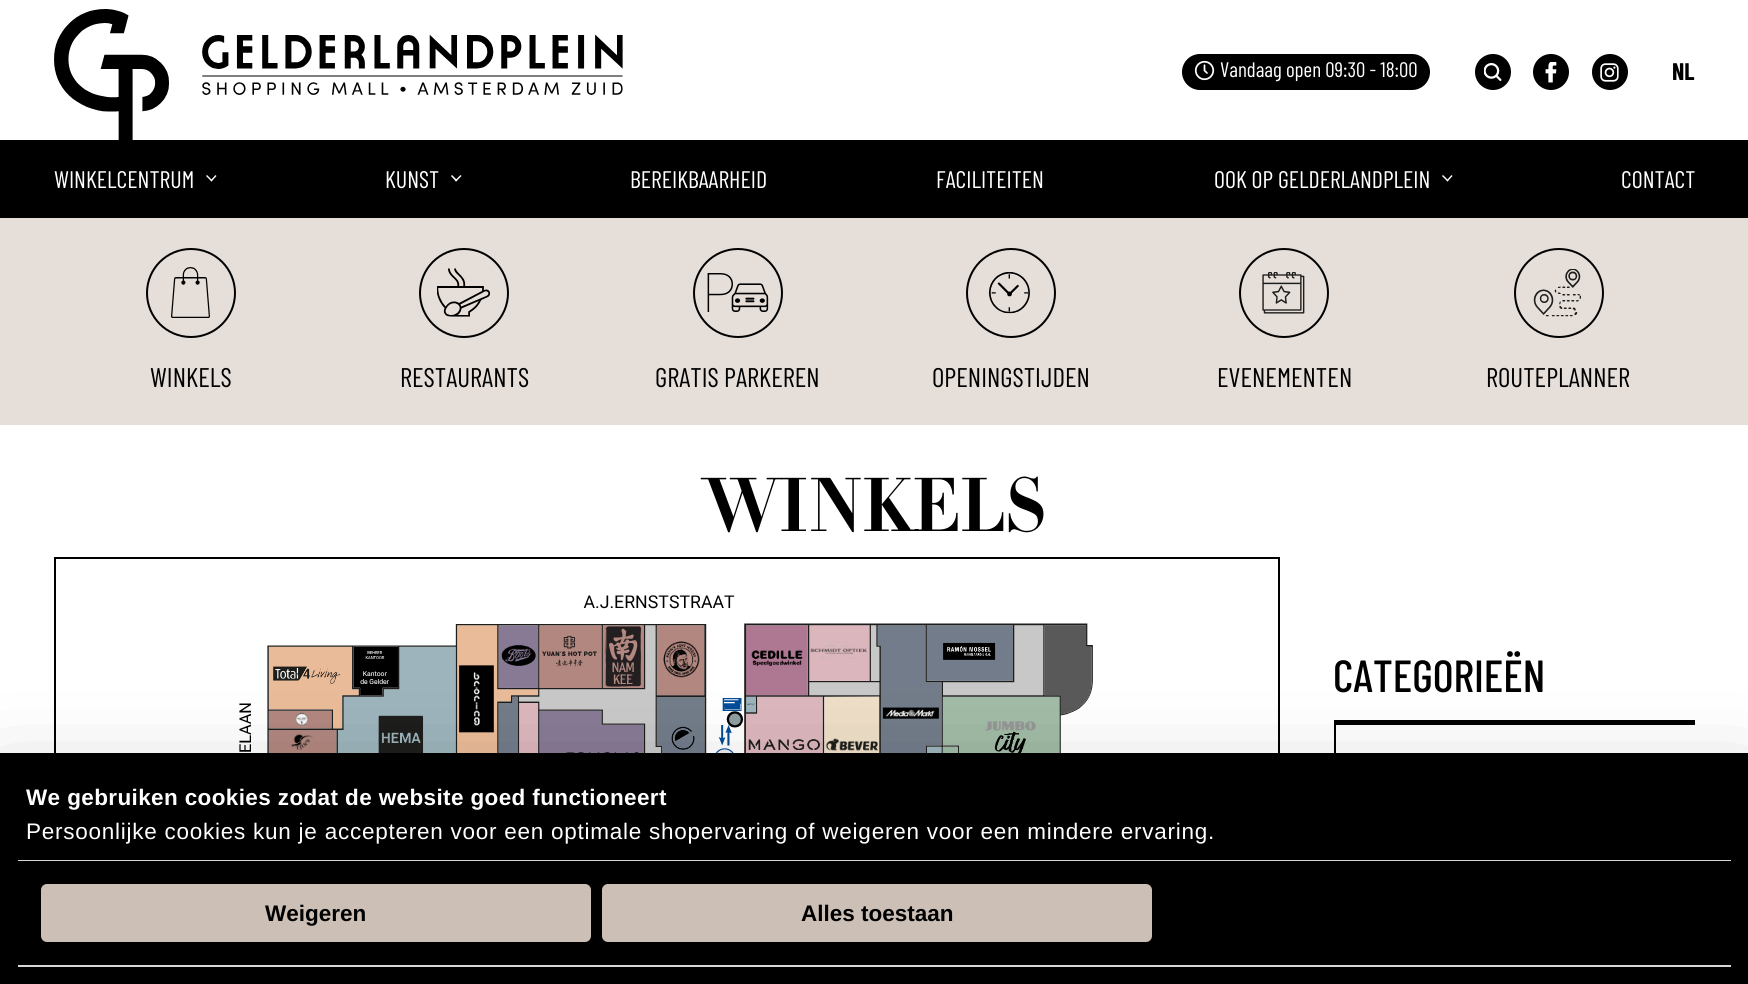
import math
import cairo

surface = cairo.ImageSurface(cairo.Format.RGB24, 1748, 984)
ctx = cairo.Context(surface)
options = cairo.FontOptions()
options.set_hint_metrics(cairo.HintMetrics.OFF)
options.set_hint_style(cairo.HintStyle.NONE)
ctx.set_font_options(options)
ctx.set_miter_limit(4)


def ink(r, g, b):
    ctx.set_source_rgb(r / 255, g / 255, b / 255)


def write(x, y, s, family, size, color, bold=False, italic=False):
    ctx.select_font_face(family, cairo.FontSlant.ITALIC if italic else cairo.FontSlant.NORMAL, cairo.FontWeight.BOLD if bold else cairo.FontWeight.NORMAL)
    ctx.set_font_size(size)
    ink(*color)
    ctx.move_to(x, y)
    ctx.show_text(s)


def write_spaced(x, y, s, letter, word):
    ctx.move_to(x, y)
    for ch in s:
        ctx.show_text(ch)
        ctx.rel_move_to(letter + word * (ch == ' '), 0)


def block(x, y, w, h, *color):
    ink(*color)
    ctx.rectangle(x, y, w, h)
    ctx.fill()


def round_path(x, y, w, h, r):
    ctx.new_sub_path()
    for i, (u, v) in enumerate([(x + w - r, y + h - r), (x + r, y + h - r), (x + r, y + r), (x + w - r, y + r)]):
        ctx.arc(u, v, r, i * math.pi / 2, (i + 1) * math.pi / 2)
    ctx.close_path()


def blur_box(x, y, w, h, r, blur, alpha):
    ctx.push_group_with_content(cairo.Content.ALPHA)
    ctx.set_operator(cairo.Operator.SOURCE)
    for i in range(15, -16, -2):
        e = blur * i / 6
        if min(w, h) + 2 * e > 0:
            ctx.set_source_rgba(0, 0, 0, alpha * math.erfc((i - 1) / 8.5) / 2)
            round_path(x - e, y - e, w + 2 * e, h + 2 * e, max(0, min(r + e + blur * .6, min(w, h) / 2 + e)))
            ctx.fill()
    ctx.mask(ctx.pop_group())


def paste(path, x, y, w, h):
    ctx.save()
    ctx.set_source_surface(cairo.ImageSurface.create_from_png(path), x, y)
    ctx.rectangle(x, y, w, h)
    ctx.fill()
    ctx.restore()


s1 = dict(family="Barlow Condensed", size=21, color=(255, 255, 255))
s2 = dict(family="Barlow Condensed", size=24, color=(0, 0, 0), bold=True)
s3 = dict(family="Barlow Condensed", size=24, color=(255, 255, 255))
s4 = dict(family="Barlow Condensed", size=27, color=(0, 0, 0))
s5 = dict(family="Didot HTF", size=75, color=(0, 0, 0), bold=True)
s6 = dict(family="Barlow Condensed Medium", size=45, color=(0, 0, 0))
s7 = dict(family="Liberation Sans", size=22.5, color=(0, 0, 0), bold=True)

ink(255, 255, 255)
ctx.paint()
paste("pic1.png", 54, 9, 569, 131)
ink(0, 0, 0)
round_path(1182, 54, 248, 36, 18)
ctx.fill()
paste("pic2.png", 1194, 60, 21, 21)
write(1220, 77, "Vandaag open 09:30 - 18:00", **s1)
ink(0, 0, 0)
ctx.new_path()
ctx.arc(1493, 72, 18, 0, 2 * math.pi)
ctx.fill()
paste("pic3.png", 1484, 63, 18, 18)
ctx.arc(1551, 72, 18, 0, 2 * math.pi)
ctx.fill()
paste("pic4.png", 1545, 62, 12, 21)
ctx.arc(1610, 72, 18, 0, 2 * math.pi)
ctx.fill()
paste("pic5.png", 1600, 63, 19, 19)
write(1672, 80, "NL", **s2)
block(0, 140, 1748, 78, 0, 0, 0)
write(54, 188, "WINKELCENTRUM", **s3)
ctx.new_path()
ctx.move_to(215.5, 175)
ctx.line_to(216.5, 176)
ctx.line_to(211.5, 181.5)
ctx.line_to(210.5, 180.5)
ctx.close_path()
ctx.fill()
ctx.new_path()
ctx.move_to(207, 175)
ctx.line_to(212.5, 180.5)
ctx.line_to(211.5, 181.5)
ctx.line_to(206, 176)
ctx.close_path()
ctx.fill()
write(385, 188, "KUNST", **s3)
ctx.new_path()
ctx.move_to(460.5, 175)
ctx.line_to(461.5, 176)
ctx.line_to(456, 181.5)
ctx.line_to(455, 180.5)
ctx.close_path()
ctx.fill()
ctx.new_path()
ctx.move_to(452, 175)
ctx.line_to(457.5, 180.5)
ctx.line_to(456, 181.5)
ctx.line_to(451, 176)
ctx.close_path()
ctx.fill()
write(630, 188, "BEREIKBAARHEID", **s3)
write(936, 188, "FACILITEITEN", **s3)
write(1214, 188, "OOK OP GELDERLANDPLEIN", **s3)
ctx.new_path()
ctx.move_to(1451.5, 175)
ctx.line_to(1452.5, 176)
ctx.line_to(1447.5, 181.5)
ctx.line_to(1446.5, 180.5)
ctx.close_path()
ctx.fill()
ctx.new_path()
ctx.move_to(1443, 175)
ctx.line_to(1448.5, 180.5)
ctx.line_to(1447.5, 181.5)
ctx.line_to(1442, 176)
ctx.close_path()
ctx.fill()
write(1621, 188, "CONTACT", **s3)
block(0, 218, 1748, 207, 229, 222, 217)
ctx.new_path()
ctx.arc(191, 293, 44, 0, 2 * math.pi)
ink(0, 0, 0)
ctx.stroke()
paste("pic6.png", 171, 267, 39, 51)
write(150, 387, "WINKELS", **s4)
ctx.new_path()
ctx.arc(464, 293, 44, 0, 2 * math.pi)
ctx.stroke()
paste("pic7.png", 437, 268, 53, 49)
write(400, 387, "RESTAURANTS", **s4)
ctx.new_path()
ctx.arc(738, 293, 44, 0, 2 * math.pi)
ctx.stroke()
paste("pic8.png", 707, 273, 62, 39)
write(655, 387, "GRATIS PARKEREN", **s4)
ctx.new_path()
ctx.arc(1011, 293, 44, 0, 2 * math.pi)
ctx.stroke()
paste("pic9.png", 989, 272, 41, 42)
write(932, 387, "OPENINGSTIJDEN", **s4)
ctx.new_path()
ctx.arc(1284, 293, 44, 0, 2 * math.pi)
ctx.stroke()
paste("pic10.png", 1262, 272, 43, 42)
write(1217, 387, "EVENEMENTEN", **s4)
ctx.new_path()
ctx.arc(1559, 293, 44, 0, 2 * math.pi)
ctx.stroke()
paste("pic11.png", 1533, 269, 48, 48)
write(1486, 387, "ROUTEPLANNER", **s4)
write(704, 531, "WINKELS", **s5)
ctx.rectangle(55, 558, 1224, 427)
ctx.stroke()
paste("pic12.png", 239, 595, 854, 158)
write(1333, 692, "CATEGORIEËN", **s6)
block(1334, 720, 361, 5, 0, 0, 0)
block(1334, 720, 2, 33, 0, 0, 0)
ink(0, 0, 0)
blur_box(0, 801, 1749, 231, 0, 51, 0.3)
block(0, 753, 1748, 231, 0, 0, 0)
block(18, 860, 1713, 1, 214, 214, 214)
ctx.select_font_face("Liberation Sans", cairo.FontSlant.NORMAL, cairo.FontWeight.BOLD)
ctx.set_font_size(22.5)
ink(255, 255, 255)
write_spaced(26, 805, "We gebruiken cookies zodat de website goed functioneert", 0.38, 0)
ctx.select_font_face("Liberation Sans")
write_spaced(26, 839, "Persoonlijke cookies kun je accepteren voor een optimale shopervaring of weigeren voor een mindere ervaring.", 0.75, 0)
block(18, 965, 1713, 2, 214, 214, 214)
ink(203, 191, 182)
round_path(42.5, 885.5, 547, 55, 4.5)
ctx.fill_preserve()
ctx.set_line_width(3)
ctx.stroke()
write(265, 921, "Weigeren", **s7)
ink(203, 191, 182)
round_path(603.5, 885.5, 547, 55, 4.5)
ctx.fill_preserve()
ctx.stroke()
write(801, 921, "Alles toestaan", **s7)
surface.write_to_png("screenshot.png")
